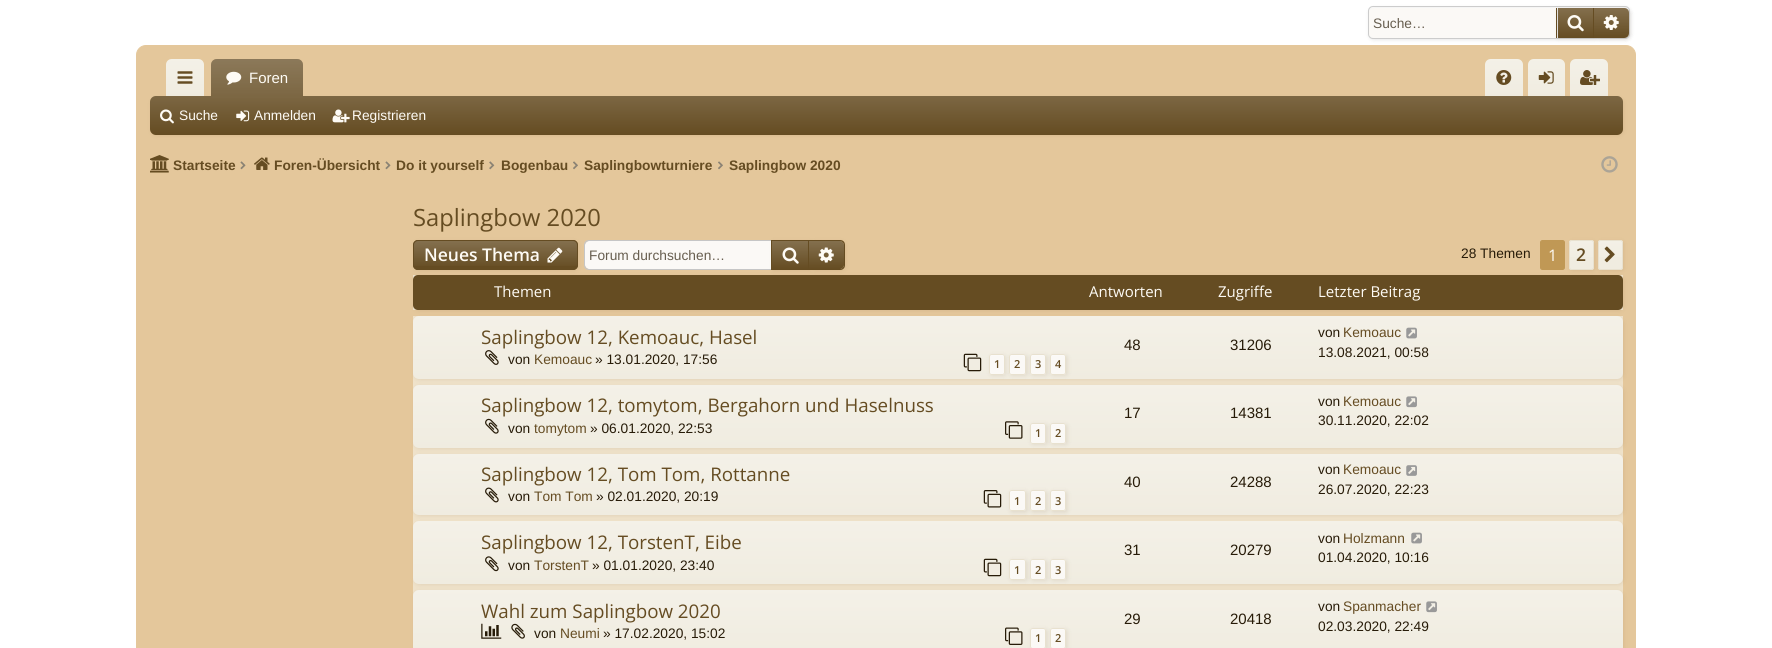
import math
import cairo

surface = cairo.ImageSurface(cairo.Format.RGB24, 1772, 648)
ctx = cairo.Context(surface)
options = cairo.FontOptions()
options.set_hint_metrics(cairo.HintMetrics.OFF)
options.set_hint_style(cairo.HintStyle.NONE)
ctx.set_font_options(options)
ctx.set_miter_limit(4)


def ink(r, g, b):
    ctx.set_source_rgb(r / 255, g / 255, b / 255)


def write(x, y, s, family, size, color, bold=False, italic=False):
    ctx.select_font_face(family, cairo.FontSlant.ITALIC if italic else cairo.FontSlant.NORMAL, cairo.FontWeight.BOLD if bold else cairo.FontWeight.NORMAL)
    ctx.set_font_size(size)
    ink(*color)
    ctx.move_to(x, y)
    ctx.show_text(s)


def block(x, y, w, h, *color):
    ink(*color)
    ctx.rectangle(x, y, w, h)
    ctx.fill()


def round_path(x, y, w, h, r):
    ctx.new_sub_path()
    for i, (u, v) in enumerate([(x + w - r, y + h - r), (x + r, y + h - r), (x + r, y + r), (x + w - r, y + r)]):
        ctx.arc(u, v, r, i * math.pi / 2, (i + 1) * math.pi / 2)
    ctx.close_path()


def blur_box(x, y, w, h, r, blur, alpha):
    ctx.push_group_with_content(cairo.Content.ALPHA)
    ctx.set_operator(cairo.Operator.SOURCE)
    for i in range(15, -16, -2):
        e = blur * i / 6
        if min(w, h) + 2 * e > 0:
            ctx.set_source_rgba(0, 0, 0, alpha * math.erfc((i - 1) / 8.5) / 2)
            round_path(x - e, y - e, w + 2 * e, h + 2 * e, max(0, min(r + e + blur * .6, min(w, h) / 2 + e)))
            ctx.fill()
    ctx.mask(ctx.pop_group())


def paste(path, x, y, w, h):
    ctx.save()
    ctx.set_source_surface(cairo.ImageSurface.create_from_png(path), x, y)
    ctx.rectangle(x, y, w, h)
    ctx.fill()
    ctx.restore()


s1 = dict(family="Liberation Sans", size=13.75, color=(103, 94, 79))
s2 = dict(family="Liberation Sans", size=15, color=(254, 251, 245))
s3 = dict(family="Liberation Sans", size=13.75, color=(254, 251, 245))
s4 = dict(family="Liberation Sans", size=13.75, color=(101, 76, 34), bold=True)
s5 = dict(family="Open Sans", size=23.75, color=(101, 76, 34))
s6 = dict(family="Open Sans SemiBold", size=17.5, color=(254, 251, 245))
s7 = dict(family="Liberation Sans", size=13.75, color=(39, 27, 8))
s8 = dict(family="Open Sans", size=16, color=(254, 251, 245))
s9 = dict(family="Open Sans SemiBold", size=17.5, color=(101, 76, 34))
s10 = dict(family="Open Sans", size=15, color=(254, 251, 245))
s11 = dict(family="Open Sans", size=18.75, color=(101, 76, 34))
s12 = dict(family="Liberation Sans", size=13.75, color=(101, 76, 34))
s13 = dict(family="Open Sans SemiBold", size=11, color=(101, 76, 34))
s14 = dict(family="Liberation Sans", size=15, color=(39, 27, 8))

ink(255, 255, 255)
ctx.paint()
ink(228, 199, 155)
round_path(136.5, 45.5, 1499, 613, 9.5)
ctx.fill_preserve()
ctx.set_line_width(1)
ctx.stroke()
ink(0, 0, 0)
blur_box(1369, 8, 262, 32, 5, 2, 0.1)
round_path(1368.5, 6.5, 261, 32, 4.5)
ink(204, 204, 204)
ctx.stroke()
ink(251, 249, 246)
ctx.new_path()
ctx.move_to(1374, 8)
ctx.line_to(1556, 8)
ctx.line_to(1556, 38)
ctx.line_to(1374, 38)
ctx.curve_to(1371, 38, 1369, 36, 1369, 33)
ctx.line_to(1369, 13)
ctx.curve_to(1369, 10, 1371, 8, 1374, 8)
ctx.close_path()
ctx.fill()
write(1373, 28, "Suche…", **s1)
ink(101, 76, 34)
blur_box(1558, 9, 37, 30, 0, 2, 0.1)
gradient = cairo.LinearGradient(1575, 7.5, 1575, 38)
gradient.add_color_stop_rgba(0, 0.518, 0.439, 0.306, 1)
gradient.add_color_stop_rgba(1, 0.396, 0.298, 0.133, 1)
ctx.set_source(gradient)
ctx.rectangle(1558, 8, 35, 30)
ctx.fill()
block(1593, 8, 1, 30, 101, 76, 34)
block(1556, 8, 1, 30, 101, 76, 34)
paste("pic1.png", 1567, 15, 17, 17)
ink(101, 76, 34)
blur_box(1595, 9, 35, 30, 5, 2, 0.1)
ink(101, 76, 34)
ctx.new_path()
ctx.move_to(1594, 8)
ctx.line_to(1624, 8)
ctx.curve_to(1627, 8, 1629, 10, 1629, 13)
ctx.line_to(1629, 33)
ctx.curve_to(1629, 36, 1627, 38, 1624, 38)
ctx.line_to(1594, 38)
ctx.close_path()
ctx.fill()
gradient = cairo.LinearGradient(1611, 7.5, 1611, 38)
gradient.add_color_stop_rgba(0, 1, 1, 1, 0.2)
gradient.add_color_stop_rgba(1, 1, 1, 1, 0)
ctx.set_source(gradient)
ctx.new_path()
ctx.move_to(1594, 8)
ctx.line_to(1624, 8)
ctx.curve_to(1627, 8, 1629, 10, 1629, 13)
ctx.line_to(1629, 33)
ctx.curve_to(1629, 36, 1627, 38, 1624, 38)
ctx.line_to(1594, 38)
ctx.close_path()
ctx.fill()
paste("pic2.png", 1603, 15, 16, 15)
ink(240, 236, 224)
ctx.new_path()
ctx.move_to(172, 59)
ctx.line_to(198, 59)
ctx.curve_to(201.5, 59, 204, 61.5, 204, 65)
ctx.line_to(204, 96)
ctx.line_to(166, 96)
ctx.line_to(166, 65)
ctx.curve_to(166, 61.5, 168.5, 59, 172, 59)
ctx.close_path()
ctx.fill()
gradient = cairo.LinearGradient(185, 59, 185, 96)
gradient.add_color_stop_rgba(0, 1, 1, 1, 0.25)
gradient.add_color_stop_rgba(1, 1, 1, 1, 0)
ctx.set_source(gradient)
ctx.new_path()
ctx.move_to(172, 59)
ctx.line_to(198, 59)
ctx.curve_to(201.5, 59, 204, 61.5, 204, 65)
ctx.line_to(204, 96)
ctx.line_to(166, 96)
ctx.line_to(166, 65)
ctx.curve_to(166, 61.5, 168.5, 59, 172, 59)
ctx.close_path()
ctx.fill()
paste("pic3.png", 177, 71, 16, 13)
ink(101, 76, 34)
ctx.new_path()
ctx.move_to(217, 59)
ctx.line_to(297, 59)
ctx.curve_to(300.5, 59, 303, 61.5, 303, 65)
ctx.line_to(303, 96)
ctx.line_to(211, 96)
ctx.line_to(211, 65)
ctx.curve_to(211, 61.5, 213.5, 59, 217, 59)
ctx.close_path()
ctx.fill()
gradient = cairo.LinearGradient(257, 59, 257, 96)
gradient.add_color_stop_rgba(0, 1, 1, 1, 0.25)
gradient.add_color_stop_rgba(1, 1, 1, 1, 0.15)
ctx.set_source(gradient)
ctx.new_path()
ctx.move_to(217, 59)
ctx.line_to(297, 59)
ctx.curve_to(300.5, 59, 303, 61.5, 303, 65)
ctx.line_to(303, 96)
ctx.line_to(211, 96)
ctx.line_to(211, 65)
ctx.curve_to(211, 61.5, 213.5, 59, 217, 59)
ctx.close_path()
ctx.fill()
paste("pic4.png", 226, 71, 16, 14)
write(249, 83, "Foren", **s2)
ink(240, 236, 224)
ctx.new_path()
ctx.move_to(1491, 59)
ctx.line_to(1517, 59)
ctx.curve_to(1520.5, 59, 1523, 61.5, 1523, 65)
ctx.line_to(1523, 96)
ctx.line_to(1485, 96)
ctx.line_to(1485, 65)
ctx.curve_to(1485, 61.5, 1487.5, 59, 1491, 59)
ctx.close_path()
ctx.fill()
gradient = cairo.LinearGradient(1504, 59, 1504, 96)
gradient.add_color_stop_rgba(0, 1, 1, 1, 0.25)
gradient.add_color_stop_rgba(1, 1, 1, 1, 0)
ctx.set_source(gradient)
ctx.new_path()
ctx.move_to(1491, 59)
ctx.line_to(1517, 59)
ctx.curve_to(1520.5, 59, 1523, 61.5, 1523, 65)
ctx.line_to(1523, 96)
ctx.line_to(1485, 96)
ctx.line_to(1485, 65)
ctx.curve_to(1485, 61.5, 1487.5, 59, 1491, 59)
ctx.close_path()
ctx.fill()
ink(240, 236, 224)
ctx.new_path()
ctx.move_to(1534, 59)
ctx.line_to(1559, 59)
ctx.curve_to(1562.5, 59, 1565, 61.5, 1565, 65)
ctx.line_to(1565, 96)
ctx.line_to(1528, 96)
ctx.line_to(1528, 65)
ctx.curve_to(1528, 61.5, 1530.5, 59, 1534, 59)
ctx.close_path()
ctx.fill()
gradient = cairo.LinearGradient(1546, 59, 1546, 96)
gradient.add_color_stop_rgba(0, 1, 1, 1, 0.25)
gradient.add_color_stop_rgba(1, 1, 1, 1, 0)
ctx.set_source(gradient)
ctx.new_path()
ctx.move_to(1534, 59)
ctx.line_to(1559, 59)
ctx.curve_to(1562.5, 59, 1565, 61.5, 1565, 65)
ctx.line_to(1565, 96)
ctx.line_to(1528, 96)
ctx.line_to(1528, 65)
ctx.curve_to(1528, 61.5, 1530.5, 59, 1534, 59)
ctx.close_path()
ctx.fill()
ink(240, 236, 224)
ctx.new_path()
ctx.move_to(1576, 59)
ctx.line_to(1602, 59)
ctx.curve_to(1605.5, 59, 1608, 61.5, 1608, 65)
ctx.line_to(1608, 96)
ctx.line_to(1570, 96)
ctx.line_to(1570, 65)
ctx.curve_to(1570, 61.5, 1572.5, 59, 1576, 59)
ctx.close_path()
ctx.fill()
gradient = cairo.LinearGradient(1589, 59, 1589, 96)
gradient.add_color_stop_rgba(0, 1, 1, 1, 0.25)
gradient.add_color_stop_rgba(1, 1, 1, 1, 0)
ctx.set_source(gradient)
ctx.new_path()
ctx.move_to(1576, 59)
ctx.line_to(1602, 59)
ctx.curve_to(1605.5, 59, 1608, 61.5, 1608, 65)
ctx.line_to(1608, 96)
ctx.line_to(1570, 96)
ctx.line_to(1570, 65)
ctx.curve_to(1570, 61.5, 1572.5, 59, 1576, 59)
ctx.close_path()
ctx.fill()
ink(101, 76, 34)
blur_box(151, 98, 1473, 38, 6, 2, 0.1)
ink(101, 76, 34)
round_path(150, 96, 1473, 39, 6)
ctx.fill()
gradient = cairo.LinearGradient(886, 96, 886, 135)
gradient.add_color_stop_rgba(0, 1, 1, 1, 0.15)
gradient.add_color_stop_rgba(1, 1, 1, 1, 0)
ctx.set_source(gradient)
round_path(150, 96, 1473, 39, 6)
ctx.fill()
ink(101, 76, 34)
ctx.new_path()
ctx.move_to(213.5, 95)
ctx.line_to(300.5, 95)
ctx.curve_to(302, 95, 303, 96, 303, 97.5)
ctx.line_to(303, 98)
ctx.line_to(211, 98)
ctx.line_to(211, 97.5)
ctx.curve_to(211, 96, 212, 95, 213.5, 95)
ctx.close_path()
ctx.fill()
ctx.set_source_rgba(1, 1, 1, 0.15)
ctx.new_path()
ctx.move_to(213.5, 95)
ctx.line_to(300.5, 95)
ctx.curve_to(302, 95, 303, 96, 303, 97.5)
ctx.line_to(303, 98)
ctx.line_to(211, 98)
ctx.line_to(211, 97.5)
ctx.curve_to(211, 96, 212, 95, 213.5, 95)
ctx.close_path()
ctx.fill()
paste("pic5.png", 1496, 70, 16, 15)
paste("pic6.png", 1538, 71, 16, 13)
paste("pic7.png", 1580, 70, 20, 15)
paste("pic8.png", 160, 109, 14, 15)
write(179, 120, "Suche", **s3)
paste("pic9.png", 236, 110, 14, 12)
write(254, 120, "Anmelden", **s3)
paste("pic10.png", 332, 109, 18, 14)
write(352, 120, "Registrieren", **s3)
paste("pic11.png", 150, 155, 19, 18)
write(173, 170, "Startseite", **s4)
paste("pic12.png", 240, 161, 6, 9)
paste("pic13.png", 254, 157, 16, 13)
write(274, 170, "Foren-Übersicht", **s4)
paste("pic12.png", 385, 161, 6, 9)
ctx.save()
ctx.rectangle(396, 151, 88, 28)
ctx.clip()
write(396, 170, "Do it yourself", **s4)
ctx.restore()
paste("pic14.png", 489, 161, 6, 9)
write(501, 170, "Bogenbau", **s4)
paste("pic15.png", 573, 161, 5, 9)
write(584, 170, "Saplingbowturniere", **s4)
paste("pic15.png", 718, 161, 5, 9)
write(729, 170, "Saplingbow 2020", **s4)
paste("pic16.png", 1601, 156, 17, 17)
write(413, 226, "Saplingbow 2020", **s5)
block(413, 275, 1210, 35, 239, 226, 202)
ink(101, 76, 34)
blur_box(414, 241, 165, 30, 5, 2, 0.1)
ink(101, 76, 34)
round_path(413, 240, 165, 30, 5)
ctx.fill()
ctx.save()
round_path(413, 240, 165, 30, 5)
ctx.clip()
gradient = cairo.LinearGradient(495, 241, 495, 269)
gradient.add_color_stop_rgba(0, 1, 1, 1, 0.2)
gradient.add_color_stop_rgba(1, 1, 1, 1, 0)
ctx.set_source(gradient)
ctx.rectangle(413, 241, 165, 25)
ctx.fill()
ctx.restore()
round_path(413.5, 240.5, 164, 29, 4.5)
ctx.stroke()
write(424, 261, "Neues Thema", **s6)
paste("pic17.png", 547, 247, 16, 16)
ink(251, 249, 246)
ctx.new_path()
ctx.move_to(589, 241)
ctx.line_to(771, 241)
ctx.line_to(771, 269)
ctx.line_to(589, 269)
ctx.curve_to(587, 269, 585, 267, 585, 265)
ctx.line_to(585, 245)
ctx.curve_to(585, 243, 587, 241, 589, 241)
ctx.close_path()
ctx.fill()
ink(198, 198, 198)
ctx.set_fill_rule(cairo.FillRule.EVEN_ODD)
ctx.new_path()
ctx.move_to(589, 240)
ctx.line_to(771, 240)
ctx.line_to(771, 270)
ctx.line_to(589, 270)
ctx.curve_to(586, 270, 584, 268, 584, 265)
ctx.line_to(584, 245)
ctx.curve_to(584, 242, 586, 240, 589, 240)
ctx.close_path()
ctx.move_to(589, 241)
ctx.line_to(771, 241)
ctx.line_to(771, 269)
ctx.line_to(589, 269)
ctx.curve_to(587, 269, 585, 267, 585, 265)
ctx.line_to(585, 245)
ctx.curve_to(585, 243, 587, 241, 589, 241)
ctx.close_path()
ctx.fill()
write(589, 260, "Forum durchsuchen…", **s1)
ink(101, 76, 34)
blur_box(773, 241, 37, 30, 0, 2, 0.1)
gradient = cairo.LinearGradient(790, 241, 790, 269)
gradient.add_color_stop_rgba(0, 0.518, 0.439, 0.306, 1)
gradient.add_color_stop_rgba(1, 0.396, 0.298, 0.133, 1)
ctx.set_source(gradient)
ctx.rectangle(772, 241, 36, 28)
ctx.fill()
ctx.rectangle(771.5, 240.5, 37, 29)
ink(101, 76, 34)
ctx.stroke()
paste("pic18.png", 782, 247, 17, 17)
ink(101, 76, 34)
blur_box(810, 241, 36, 30, 5, 2, 0.1)
ink(101, 76, 34)
ctx.new_path()
ctx.move_to(809, 241)
ctx.line_to(840, 241)
ctx.curve_to(842, 241, 844, 243, 844, 245)
ctx.line_to(844, 265)
ctx.curve_to(844, 267, 842, 269, 840, 269)
ctx.line_to(809, 269)
ctx.close_path()
ctx.fill()
gradient = cairo.LinearGradient(826, 241, 826, 269)
gradient.add_color_stop_rgba(0, 1, 1, 1, 0.2)
gradient.add_color_stop_rgba(1, 1, 1, 1, 0)
ctx.set_source(gradient)
ctx.new_path()
ctx.move_to(809, 241)
ctx.line_to(840, 241)
ctx.curve_to(842, 241, 844, 243, 844, 245)
ctx.line_to(844, 265)
ctx.curve_to(844, 267, 842, 269, 840, 269)
ctx.line_to(809, 269)
ctx.close_path()
ctx.fill()
ink(101, 76, 34)
ctx.new_path()
ctx.move_to(809, 240)
ctx.line_to(840, 240)
ctx.curve_to(843, 240, 845, 242, 845, 245)
ctx.line_to(845, 265)
ctx.curve_to(845, 268, 843, 270, 840, 270)
ctx.line_to(809, 270)
ctx.close_path()
ctx.move_to(809, 241)
ctx.line_to(840, 241)
ctx.curve_to(842, 241, 844, 243, 844, 245)
ctx.line_to(844, 265)
ctx.curve_to(844, 267, 842, 269, 840, 269)
ctx.line_to(809, 269)
ctx.close_path()
ctx.fill()
paste("pic19.png", 818, 247, 16, 16)
write(1461, 258, "28 Themen", **s7)
ink(192, 152, 85)
round_path(1540.5, 240.5, 24, 29, 2)
ctx.fill_preserve()
ctx.stroke()
write(1548, 261, "1", **s8)
ink(101, 76, 34)
blur_box(1570, 241, 25, 30, 2.5, 2, 0.1)
ink(240, 236, 224)
round_path(1569, 240, 25, 30, 2.5)
ctx.fill()
gradient = cairo.LinearGradient(1581, 241, 1581, 269)
gradient.add_color_stop_rgba(0, 1, 1, 1, 0.2)
gradient.add_color_stop_rgba(1, 1, 1, 1, 0)
ctx.set_source(gradient)
ctx.rectangle(1569, 241, 25, 16)
ctx.fill()
round_path(1569.5, 240.5, 24, 29, 2)
ink(232, 225, 207)
ctx.stroke()
write(1576, 261, "2", **s9)
ink(101, 76, 34)
blur_box(1599, 241, 25, 30, 2.5, 2, 0.1)
ink(240, 236, 224)
round_path(1598, 240, 25, 30, 2.5)
ctx.fill()
gradient = cairo.LinearGradient(1610, 241, 1610, 269)
gradient.add_color_stop_rgba(0, 1, 1, 1, 0.2)
gradient.add_color_stop_rgba(1, 1, 1, 1, 0)
ctx.set_source(gradient)
ctx.rectangle(1598, 241, 25, 16)
ctx.fill()
round_path(1598.5, 240.5, 24, 29, 2)
ink(232, 225, 207)
ctx.stroke()
paste("pic20.png", 1604, 246, 11, 17)
block(413, 316, 1210, 332, 239, 226, 202)
ink(101, 76, 34)
blur_box(414, 318, 1210, 62, 6, 2, 0.1)
ink(240, 236, 224)
round_path(413, 316, 1210, 63, 6)
ctx.fill()
gradient = cairo.LinearGradient(1018, 316, 1018, 379)
gradient.add_color_stop_rgba(0, 1, 1, 1, 0.25)
gradient.add_color_stop_rgba(1, 1, 1, 1, 0)
ctx.set_source(gradient)
round_path(413, 316, 1210, 63, 6)
ctx.fill()
ink(101, 76, 34)
blur_box(414, 276, 1210, 35, 5, 2, 0.1)
ink(101, 76, 34)
round_path(413, 275, 1210, 35, 5)
ctx.fill()
write(494, 297, "Themen", **s10)
write(1089, 297, "Antworten", **s10)
write(1218, 297, "Zugriffe", **s10)
write(1318, 297, "Letzter Beitrag", **s10)
write(481, 344, "Saplingbow 12, Kemoauc, Hasel", **s11)
paste("pic21.png", 485, 350, 14, 15)
write(508, 364, "von", **s7)
write(534, 364, "Kemoauc", **s12)
write(595, 364, "» 13.01.2020, 17:56", **s7)
paste("pic22.png", 963, 353, 19, 19)
ink(101, 76, 34)
blur_box(990, 355, 16, 21, 2.5, 2, 0.1)
ink(251, 249, 246)
round_path(989, 354, 16, 21, 2.5)
ctx.fill()
gradient = cairo.LinearGradient(997, 355, 997, 374)
gradient.add_color_stop_rgba(0, 1, 1, 1, 0.2)
gradient.add_color_stop_rgba(1, 1, 1, 1, 0)
ctx.set_source(gradient)
ctx.rectangle(989, 355, 16, 1)
ctx.fill()
round_path(989.5, 354.5, 15, 20, 2)
ink(232, 225, 207)
ctx.stroke()
write(994, 368, "1", **s13)
ink(101, 76, 34)
blur_box(1010, 355, 18, 21, 2.5, 2, 0.1)
ink(251, 249, 246)
round_path(1009, 354, 17, 21, 2.5)
ctx.fill()
gradient = cairo.LinearGradient(1018, 355, 1018, 374)
gradient.add_color_stop_rgba(0, 1, 1, 1, 0.2)
gradient.add_color_stop_rgba(1, 1, 1, 1, 0)
ctx.set_source(gradient)
ctx.rectangle(1009, 355, 17, 1)
ctx.fill()
round_path(1009.5, 354.5, 16, 20, 2)
ink(232, 225, 207)
ctx.stroke()
write(1014, 368, "2", **s13)
ink(101, 76, 34)
blur_box(1031, 355, 17, 21, 2.5, 2, 0.1)
ink(251, 249, 246)
round_path(1030, 354, 16, 21, 2.5)
ctx.fill()
gradient = cairo.LinearGradient(1038, 355, 1038, 374)
gradient.add_color_stop_rgba(0, 1, 1, 1, 0.2)
gradient.add_color_stop_rgba(1, 1, 1, 1, 0)
ctx.set_source(gradient)
ctx.rectangle(1030, 355, 16, 1)
ctx.fill()
round_path(1030.5, 354.5, 15, 20, 2)
ink(232, 225, 207)
ctx.stroke()
write(1035, 368, "3", **s13)
ink(101, 76, 34)
blur_box(1051, 355, 17, 21, 2.5, 2, 0.1)
ink(251, 249, 246)
round_path(1050, 354, 16, 21, 2.5)
ctx.fill()
gradient = cairo.LinearGradient(1058, 355, 1058, 374)
gradient.add_color_stop_rgba(0, 1, 1, 1, 0.2)
gradient.add_color_stop_rgba(1, 1, 1, 1, 0)
ctx.set_source(gradient)
ctx.rectangle(1050, 355, 16, 1)
ctx.fill()
round_path(1050.5, 354.5, 15, 20, 2)
ink(232, 225, 207)
ctx.stroke()
write(1055, 368, "4", **s13)
write(1124, 350, "48", **s14)
write(1230, 350, "31206", **s14)
write(1318, 337, "von", **s7)
write(1343, 337, "Kemoauc", **s12)
paste("pic23.png", 1406, 327, 11, 12)
write(1318, 357, "13.08.2021, 00:58", **s7)
ink(101, 76, 34)
blur_box(414, 386, 1210, 63, 6, 2, 0.1)
ink(240, 236, 224)
round_path(413, 385, 1210, 63, 6)
ctx.fill()
gradient = cairo.LinearGradient(1018, 385, 1018, 448)
gradient.add_color_stop_rgba(0, 1, 1, 1, 0.25)
gradient.add_color_stop_rgba(1, 1, 1, 1, 0)
ctx.set_source(gradient)
round_path(413, 385, 1210, 63, 6)
ctx.fill()
write(481, 412, "Saplingbow 12, tomytom, Bergahorn und Haselnuss", **s11)
paste("pic24.png", 485, 418, 14, 16)
write(508, 433, "von", **s7)
write(534, 433, "tomytom", **s12)
write(590, 433, "» 06.01.2020, 22:53", **s7)
paste("pic25.png", 1005, 421, 18, 18)
ink(101, 76, 34)
blur_box(1031, 424, 17, 21, 2.5, 2, 0.1)
ink(251, 249, 246)
round_path(1030, 423, 16, 21, 2.5)
ctx.fill()
gradient = cairo.LinearGradient(1038, 424, 1038, 443)
gradient.add_color_stop_rgba(0, 1, 1, 1, 0.2)
gradient.add_color_stop_rgba(1, 1, 1, 1, 0)
ctx.set_source(gradient)
ctx.rectangle(1030, 424, 16, 1)
ctx.fill()
round_path(1030.5, 423.5, 15, 20, 2)
ink(232, 225, 207)
ctx.stroke()
write(1035, 437, "1", **s13)
ink(101, 76, 34)
blur_box(1051, 424, 17, 21, 2.5, 2, 0.1)
ink(251, 249, 246)
round_path(1050, 423, 16, 21, 2.5)
ctx.fill()
gradient = cairo.LinearGradient(1058, 424, 1058, 443)
gradient.add_color_stop_rgba(0, 1, 1, 1, 0.2)
gradient.add_color_stop_rgba(1, 1, 1, 1, 0)
ctx.set_source(gradient)
ctx.rectangle(1050, 424, 16, 1)
ctx.fill()
round_path(1050.5, 423.5, 15, 20, 2)
ink(232, 225, 207)
ctx.stroke()
write(1055, 437, "2", **s13)
write(1124, 418, "17", **s14)
write(1230, 418, "14381", **s14)
write(1318, 406, "von", **s7)
write(1343, 406, "Kemoauc", **s12)
paste("pic26.png", 1406, 396, 11, 12)
write(1318, 425, "30.11.2020, 22:02", **s7)
ink(101, 76, 34)
blur_box(414, 455, 1210, 61, 6, 2, 0.1)
ink(240, 236, 224)
round_path(413, 454, 1210, 61, 6)
ctx.fill()
gradient = cairo.LinearGradient(1018, 454, 1018, 515)
gradient.add_color_stop_rgba(0, 1, 1, 1, 0.25)
gradient.add_color_stop_rgba(1, 1, 1, 1, 0)
ctx.set_source(gradient)
round_path(413, 454, 1210, 61, 6)
ctx.fill()
write(481, 481, "Saplingbow 12, Tom Tom, Rottanne", **s11)
paste("pic27.png", 485, 487, 14, 16)
write(508, 501, "von", **s7)
write(534, 501, "Tom Tom", **s12)
write(596, 501, "» 02.01.2020, 20:19", **s7)
paste("pic28.png", 983, 490, 19, 18)
ink(101, 76, 34)
blur_box(1010, 491, 18, 22, 2.5, 2, 0.1)
ink(251, 249, 246)
round_path(1009, 490, 17, 21, 2.5)
ctx.fill()
gradient = cairo.LinearGradient(1018, 491, 1018, 510)
gradient.add_color_stop_rgba(0, 1, 1, 1, 0.2)
gradient.add_color_stop_rgba(1, 1, 1, 1, 0)
ctx.set_source(gradient)
ctx.rectangle(1009, 491, 17, 1)
ctx.fill()
round_path(1009.5, 490.5, 16, 20, 2)
ink(232, 225, 207)
ctx.stroke()
write(1014, 505, "1", **s13)
ink(101, 76, 34)
blur_box(1031, 491, 17, 22, 2.5, 2, 0.1)
ink(251, 249, 246)
round_path(1030, 490, 16, 21, 2.5)
ctx.fill()
gradient = cairo.LinearGradient(1038, 491, 1038, 510)
gradient.add_color_stop_rgba(0, 1, 1, 1, 0.2)
gradient.add_color_stop_rgba(1, 1, 1, 1, 0)
ctx.set_source(gradient)
ctx.rectangle(1030, 491, 16, 1)
ctx.fill()
round_path(1030.5, 490.5, 15, 20, 2)
ink(232, 225, 207)
ctx.stroke()
write(1035, 505, "2", **s13)
ink(101, 76, 34)
blur_box(1051, 491, 17, 22, 2.5, 2, 0.1)
ink(251, 249, 246)
round_path(1050, 490, 16, 21, 2.5)
ctx.fill()
gradient = cairo.LinearGradient(1058, 491, 1058, 510)
gradient.add_color_stop_rgba(0, 1, 1, 1, 0.2)
gradient.add_color_stop_rgba(1, 1, 1, 1, 0)
ctx.set_source(gradient)
ctx.rectangle(1050, 491, 16, 1)
ctx.fill()
round_path(1050.5, 490.5, 15, 20, 2)
ink(232, 225, 207)
ctx.stroke()
write(1055, 505, "3", **s13)
write(1124, 487, "40", **s14)
write(1230, 487, "24288", **s14)
write(1318, 474, "von", **s7)
write(1343, 474, "Kemoauc", **s12)
paste("pic29.png", 1406, 465, 11, 11)
write(1318, 494, "26.07.2020, 22:23", **s7)
ink(101, 76, 34)
blur_box(414, 523, 1210, 62, 6, 2, 0.1)
ink(240, 236, 224)
round_path(413, 521, 1210, 63, 6)
ctx.fill()
gradient = cairo.LinearGradient(1018, 521, 1018, 584)
gradient.add_color_stop_rgba(0, 1, 1, 1, 0.25)
gradient.add_color_stop_rgba(1, 1, 1, 1, 0)
ctx.set_source(gradient)
round_path(413, 521, 1210, 63, 6)
ctx.fill()
write(481, 549, "Saplingbow 12, TorstenT, Eibe", **s11)
paste("pic30.png", 485, 556, 14, 16)
write(508, 570, "von", **s7)
write(534, 570, "TorstenT", **s12)
write(592, 570, "» 01.01.2020, 23:40", **s7)
paste("pic22.png", 983, 558, 19, 19)
ink(101, 76, 34)
blur_box(1010, 560, 18, 21, 2.5, 2, 0.1)
ink(251, 249, 246)
round_path(1009, 559, 17, 21, 2.5)
ctx.fill()
gradient = cairo.LinearGradient(1018, 560, 1018, 579)
gradient.add_color_stop_rgba(0, 1, 1, 1, 0.2)
gradient.add_color_stop_rgba(1, 1, 1, 1, 0)
ctx.set_source(gradient)
ctx.rectangle(1009, 560, 17, 1)
ctx.fill()
round_path(1009.5, 559.5, 16, 20, 2)
ink(232, 225, 207)
ctx.stroke()
write(1014, 574, "1", **s13)
ink(101, 76, 34)
blur_box(1031, 560, 17, 21, 2.5, 2, 0.1)
ink(251, 249, 246)
round_path(1030, 559, 16, 21, 2.5)
ctx.fill()
gradient = cairo.LinearGradient(1038, 560, 1038, 579)
gradient.add_color_stop_rgba(0, 1, 1, 1, 0.2)
gradient.add_color_stop_rgba(1, 1, 1, 1, 0)
ctx.set_source(gradient)
ctx.rectangle(1030, 560, 16, 1)
ctx.fill()
round_path(1030.5, 559.5, 15, 20, 2)
ink(232, 225, 207)
ctx.stroke()
write(1035, 574, "2", **s13)
ink(101, 76, 34)
blur_box(1051, 560, 17, 21, 2.5, 2, 0.1)
ink(251, 249, 246)
round_path(1050, 559, 16, 21, 2.5)
ctx.fill()
gradient = cairo.LinearGradient(1058, 560, 1058, 579)
gradient.add_color_stop_rgba(0, 1, 1, 1, 0.2)
gradient.add_color_stop_rgba(1, 1, 1, 1, 0)
ctx.set_source(gradient)
ctx.rectangle(1050, 560, 16, 1)
ctx.fill()
round_path(1050.5, 559.5, 15, 20, 2)
ink(232, 225, 207)
ctx.stroke()
write(1055, 574, "3", **s13)
write(1124, 555, "31", **s14)
write(1230, 555, "20279", **s14)
write(1318, 543, "von", **s7)
write(1343, 543, "Holzmann", **s12)
paste("pic23.png", 1411, 532, 11, 12)
write(1318, 562, "01.04.2020, 10:16", **s7)
ink(101, 76, 34)
blur_box(414, 591, 1210, 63, 6, 2, 0.1)
ink(240, 236, 224)
round_path(413, 590, 1210, 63, 6)
ctx.fill()
gradient = cairo.LinearGradient(1018, 590, 1018, 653)
gradient.add_color_stop_rgba(0, 1, 1, 1, 0.25)
gradient.add_color_stop_rgba(1, 1, 1, 1, 0)
ctx.set_source(gradient)
round_path(413, 590, 1210, 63, 6)
ctx.fill()
write(481, 618, "Wahl zum Saplingbow 2020", **s11)
paste("pic31.png", 481, 623, 21, 16)
paste("pic32.png", 511, 623, 14, 16)
write(534, 638, "von", **s7)
write(560, 638, "Neumi", **s12)
write(603, 638, "» 17.02.2020, 15:02", **s7)
paste("pic33.png", 1005, 627, 18, 18)
ink(101, 76, 34)
blur_box(1031, 629, 17, 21, 2.5, 2, 0.1)
ink(251, 249, 246)
round_path(1030, 628, 16, 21, 2.5)
ctx.fill()
gradient = cairo.LinearGradient(1038, 629, 1038, 648)
gradient.add_color_stop_rgba(0, 1, 1, 1, 0.2)
gradient.add_color_stop_rgba(1, 1, 1, 1, 0)
ctx.set_source(gradient)
ctx.rectangle(1030, 629, 16, 1)
ctx.fill()
round_path(1030.5, 628.5, 15, 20, 2)
ink(232, 225, 207)
ctx.stroke()
write(1035, 642, "1", **s13)
ink(101, 76, 34)
blur_box(1051, 629, 17, 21, 2.5, 2, 0.1)
ink(251, 249, 246)
round_path(1050, 628, 16, 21, 2.5)
ctx.fill()
gradient = cairo.LinearGradient(1058, 629, 1058, 648)
gradient.add_color_stop_rgba(0, 1, 1, 1, 0.2)
gradient.add_color_stop_rgba(1, 1, 1, 1, 0)
ctx.set_source(gradient)
ctx.rectangle(1050, 629, 16, 1)
ctx.fill()
round_path(1050.5, 628.5, 15, 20, 2)
ink(232, 225, 207)
ctx.stroke()
write(1055, 642, "2", **s13)
write(1124, 624, "29", **s14)
write(1230, 624, "20418", **s14)
write(1318, 611, "von", **s7)
write(1343, 611, "Spanmacher", **s12)
paste("pic26.png", 1426, 601, 11, 12)
write(1318, 631, "02.03.2020, 22:49", **s7)
surface.write_to_png("screenshot.png")
